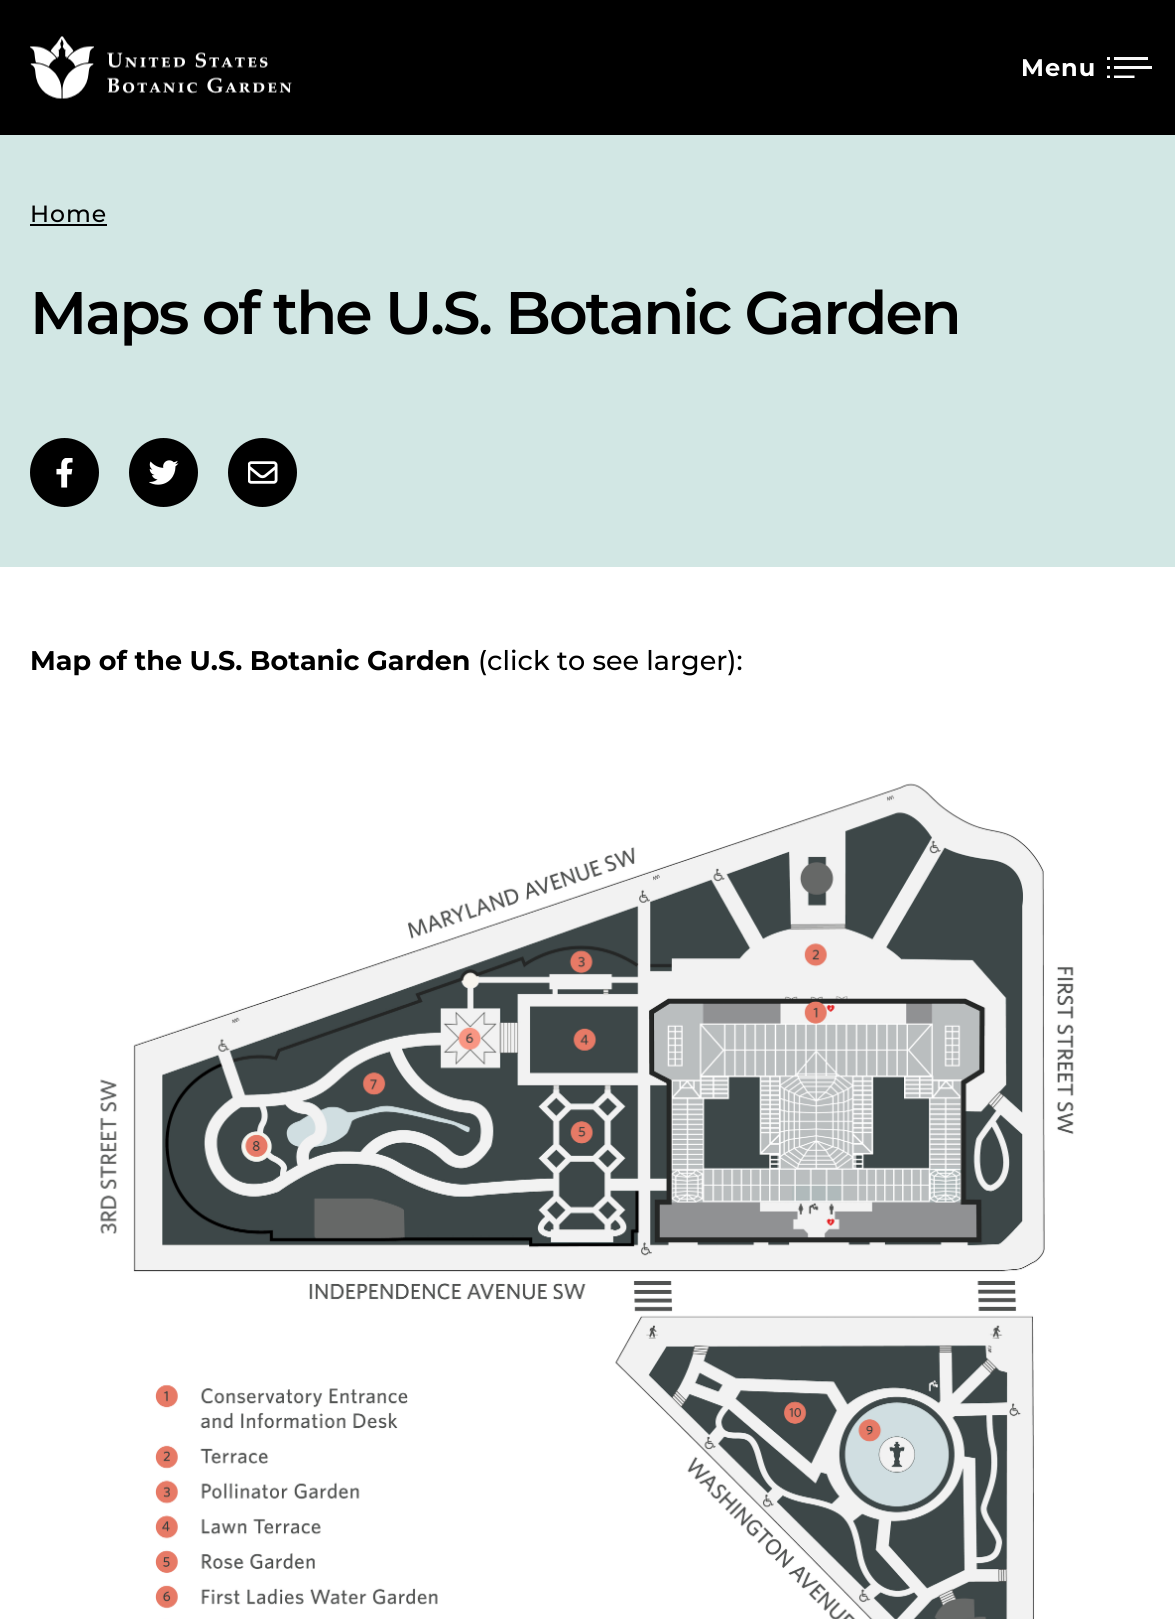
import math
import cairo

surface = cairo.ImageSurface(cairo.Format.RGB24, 1175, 1619)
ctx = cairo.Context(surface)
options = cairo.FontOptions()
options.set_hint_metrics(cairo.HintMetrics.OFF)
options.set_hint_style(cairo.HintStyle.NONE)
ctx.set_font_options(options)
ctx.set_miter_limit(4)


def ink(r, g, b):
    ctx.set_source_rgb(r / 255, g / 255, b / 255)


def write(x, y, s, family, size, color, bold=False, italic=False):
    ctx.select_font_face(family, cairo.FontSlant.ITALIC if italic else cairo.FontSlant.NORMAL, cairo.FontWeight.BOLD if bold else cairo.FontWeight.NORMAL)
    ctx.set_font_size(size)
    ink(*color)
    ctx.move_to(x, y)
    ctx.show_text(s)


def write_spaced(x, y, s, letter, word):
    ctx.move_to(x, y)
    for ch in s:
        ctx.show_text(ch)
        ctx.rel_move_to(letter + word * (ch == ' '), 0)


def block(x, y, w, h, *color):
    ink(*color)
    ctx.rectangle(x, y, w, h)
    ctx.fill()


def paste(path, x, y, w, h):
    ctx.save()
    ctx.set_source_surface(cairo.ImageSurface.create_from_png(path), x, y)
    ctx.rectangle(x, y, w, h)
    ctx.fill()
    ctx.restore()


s1 = dict(family="Montserrat", size=27, color=(0, 0, 0), bold=True)
s2 = dict(family="Montserrat Medium", size=27, color=(0, 0, 0))

ink(255, 255, 255)
ctx.paint()
block(0, 0, 1175, 135, 0, 0, 0)
paste("pic1.png", 30, 36, 262, 63)
ctx.select_font_face("Montserrat", cairo.FontSlant.NORMAL, cairo.FontWeight.BOLD)
ctx.set_font_size(24)
ink(255, 255, 255)
write_spaced(1021, 76, "Menu", 1, 0)
block(1114, 57, 34, 3, 247, 247, 247)
ctx.new_path()
ctx.move_to(1107, 58.5)
ctx.line_to(1110, 58.5)
ink(255, 255, 255)
ctx.set_line_width(2.9)
ctx.stroke()
block(1114, 66, 38, 3, 247, 247, 247)
ctx.new_path()
ctx.move_to(1107, 67.5)
ctx.line_to(1110, 67.5)
ink(255, 255, 255)
ctx.stroke()
ctx.save()
ctx.rectangle(1107, 57, 45, 21)
ctx.clip()
ctx.new_path()
ctx.move_to(1114, 77)
ctx.line_to(1134.5, 77)
ctx.move_to(1107, 77)
ctx.line_to(1110, 77)
ctx.stroke()
ctx.restore()
block(0, 135, 1175, 432, 210, 231, 228)
ctx.select_font_face("Montserrat Medium")
ctx.set_font_size(23.5)
ink(0, 0, 0)
write_spaced(30, 222, "Home", 1, 0)
block(30, 224, 77, 2, 0, 0, 0)
ctx.select_font_face("Montserrat SemiBold")
ctx.set_font_size(60)
write_spaced(30, 334, "Maps of the U.S. Botanic Garden", -2.1, 0)
ctx.new_path()
ctx.arc(64.5, 472.5, 34.5, 0, 2 * math.pi)
ctx.fill()
paste("pic2.png", 56, 458, 17, 30)
ctx.arc(163.5, 472.5, 34.5, 0, 2 * math.pi)
ctx.fill()
paste("pic3.png", 149, 460, 30, 25)
ctx.arc(262.5, 472.5, 34.5, 0, 2 * math.pi)
ctx.fill()
paste("pic4.png", 248, 461, 30, 23)
write(30, 670, "Map of the U.S. Botanic Garden", **s1)
write(478, 670, "(click to see larger):", **s2)
paste("pic5.png", 100, 783, 974, 836)
surface.write_to_png("screenshot.png")
